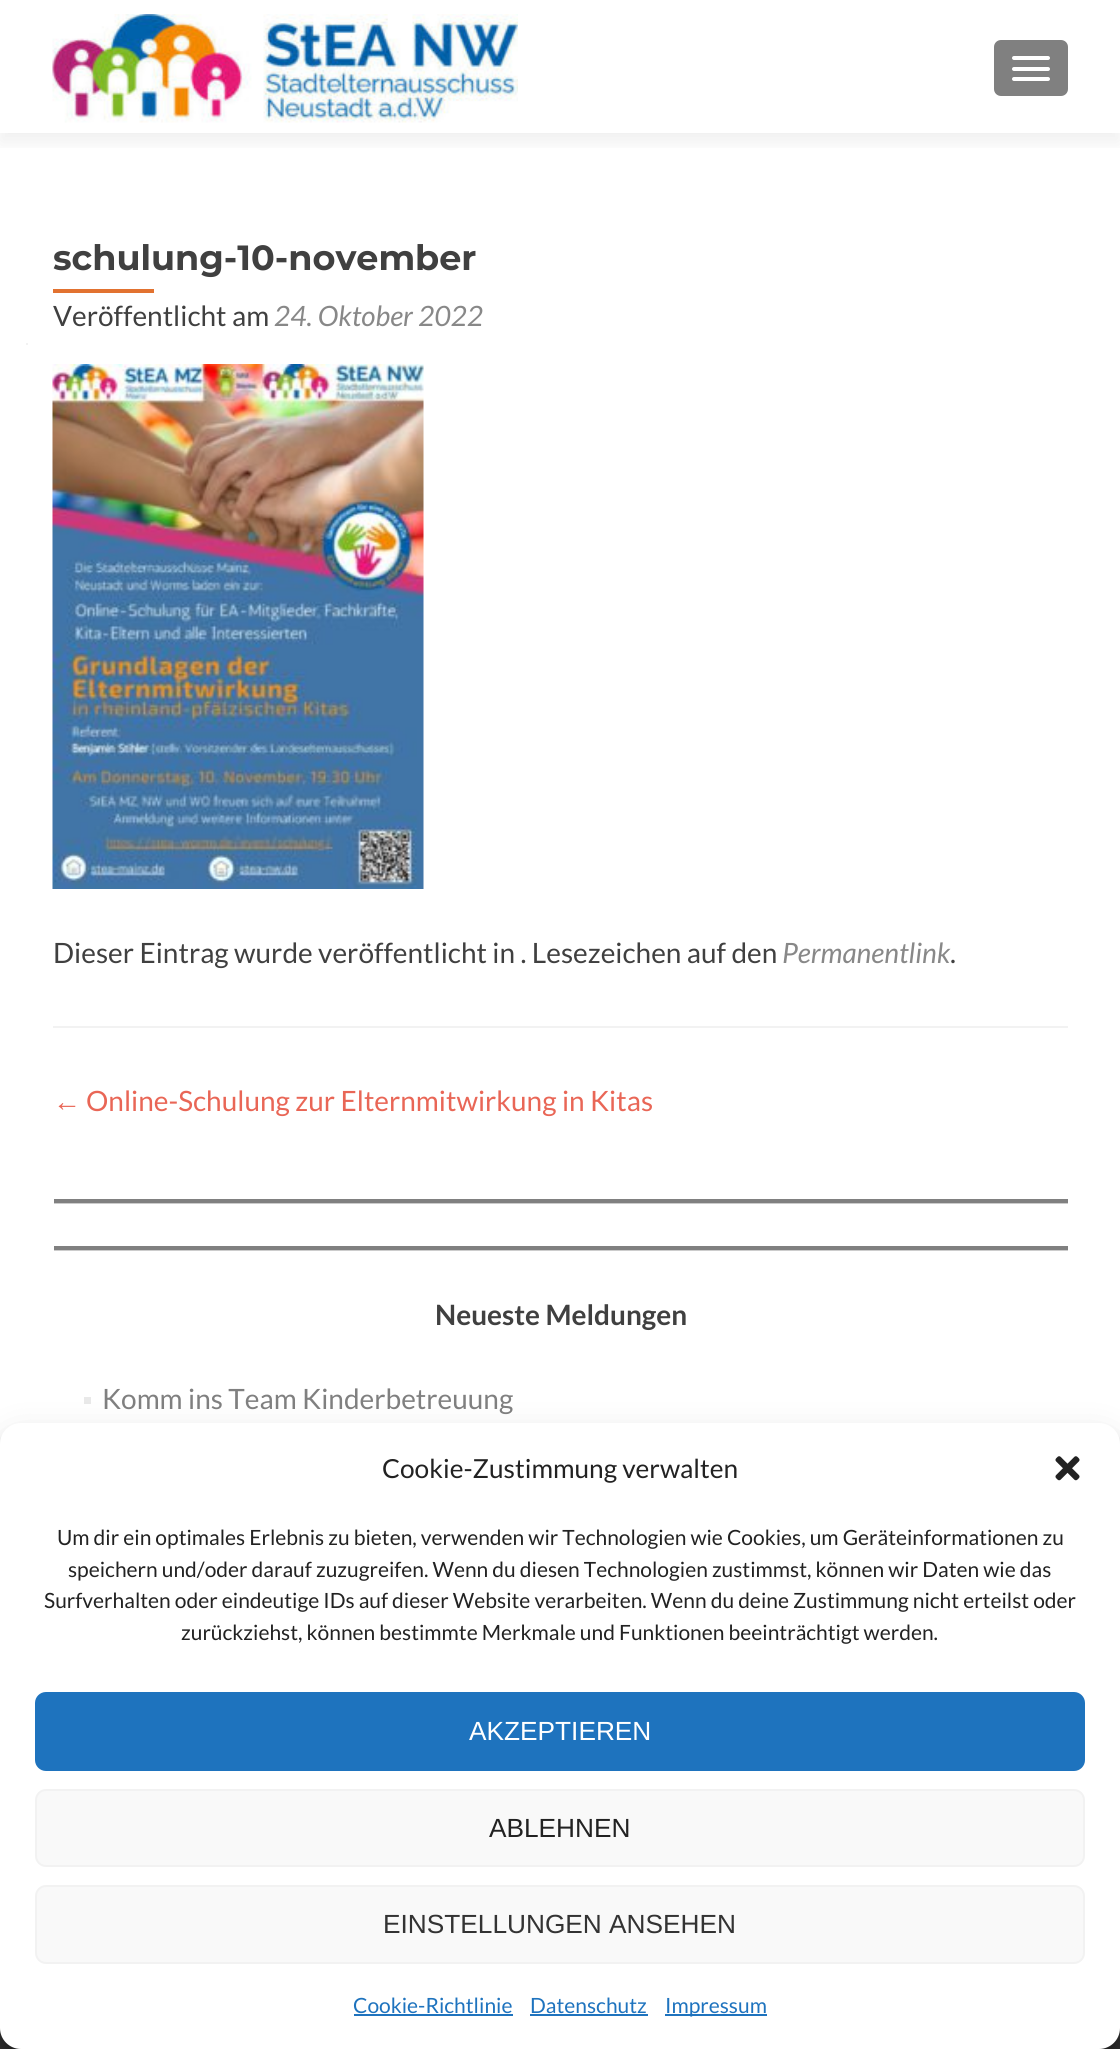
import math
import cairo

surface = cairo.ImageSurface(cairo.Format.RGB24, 1120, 2049)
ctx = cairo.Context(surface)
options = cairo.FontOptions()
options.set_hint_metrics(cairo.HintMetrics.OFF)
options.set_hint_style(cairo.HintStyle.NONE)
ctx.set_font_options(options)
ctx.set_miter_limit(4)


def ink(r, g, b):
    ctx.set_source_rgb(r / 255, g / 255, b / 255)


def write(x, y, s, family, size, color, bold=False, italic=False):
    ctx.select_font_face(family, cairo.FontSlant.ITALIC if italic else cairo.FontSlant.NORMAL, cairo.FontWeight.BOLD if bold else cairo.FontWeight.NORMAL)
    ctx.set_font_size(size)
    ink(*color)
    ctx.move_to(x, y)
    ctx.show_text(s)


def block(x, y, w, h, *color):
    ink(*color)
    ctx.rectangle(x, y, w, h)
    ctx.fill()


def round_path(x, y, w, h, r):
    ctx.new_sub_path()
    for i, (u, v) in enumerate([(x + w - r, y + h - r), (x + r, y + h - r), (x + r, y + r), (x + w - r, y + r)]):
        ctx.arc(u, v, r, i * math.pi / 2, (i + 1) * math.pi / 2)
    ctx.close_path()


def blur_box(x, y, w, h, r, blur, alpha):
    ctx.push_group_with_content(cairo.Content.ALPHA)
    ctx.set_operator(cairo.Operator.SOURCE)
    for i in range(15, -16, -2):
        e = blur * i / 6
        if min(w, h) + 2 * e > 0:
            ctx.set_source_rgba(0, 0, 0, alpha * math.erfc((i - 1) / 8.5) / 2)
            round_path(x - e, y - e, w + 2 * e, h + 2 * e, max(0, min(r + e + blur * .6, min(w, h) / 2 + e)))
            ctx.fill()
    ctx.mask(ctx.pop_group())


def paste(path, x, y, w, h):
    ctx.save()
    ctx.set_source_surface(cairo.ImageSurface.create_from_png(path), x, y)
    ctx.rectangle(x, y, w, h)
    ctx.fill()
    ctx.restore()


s1 = dict(family="Montserrat", size=35, color=(64, 64, 64), bold=True)
s2 = dict(family="Lato", size=28, color=(64, 64, 64))
s3 = dict(family="Lato", size=28, color=(136, 136, 136), italic=True)
s4 = dict(family="Liberation Sans", size=28, color=(233, 102, 86))
s5 = dict(family="Lato", size=28, color=(233, 102, 86))
s6 = dict(family="Lato", size=28, color=(64, 64, 64), bold=True)
s7 = dict(family="Lato", size=28, color=(128, 128, 128))
s8 = dict(family="Lato", size=26.25, color=(34, 34, 34))
s9 = dict(family="Lato", size=21, color=(34, 34, 34))
s10 = dict(family="Liberation Sans", size=26.25, color=(255, 255, 255))
s11 = dict(family="Liberation Sans", size=26.25, color=(34, 34, 34))
s12 = dict(family="Liberation Sans", size=26.25, color=(51, 51, 51))
s13 = dict(family="Lato", size=21, color=(30, 115, 190))

ink(255, 255, 255)
ctx.paint()
ctx.save()
ctx.rectangle(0, 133, 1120, 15)
ctx.clip()
ink(50, 50, 50)
blur_box(0, 9, 1120, 133, 0, 9.5, 0.08)
ctx.restore()
paste("pic1.png", 52, 14, 466, 109)
ink(128, 128, 128)
round_path(994, 40, 74, 56, 7)
ctx.fill()
ink(255, 255, 255)
round_path(1012, 56, 38, 4, 2)
ctx.fill()
round_path(1012, 67, 38, 4, 2)
ctx.fill()
round_path(1012, 77, 38, 4, 2)
ctx.fill()
block(53, 1026, 1015, 2, 242, 242, 242)
write(53, 270, "schulung-10-november", **s1)
block(53, 289, 101, 4, 226, 114, 48)
write(53, 326, "Veröffentlicht am", **s2)
write(274, 326, "24. Oktober 2022", **s3)
paste("pic2.png", 52, 364, 372, 525)
write(53, 963, "Dieser Eintrag wurde veröffentlicht in . Lesezeichen auf den", **s2)
write(782, 963, "Permanentlink", **s3)
write(950, 963, ".", **s2)
write(53, 1111, "←", **s4)
write(86, 1111, "Online-Schulung zur Elternmitwirkung in Kitas", **s5)
block(26, 343, 2, 2, 242, 242, 242)
block(54, 1203, 1014, 1, 204, 204, 204)
block(54, 1199, 1014, 4, 128, 128, 128)
block(54, 1250, 1014, 1, 204, 204, 204)
block(54, 1246, 1014, 4, 128, 128, 128)
write(435, 1325, "Neueste Meldungen", **s6)
block(84, 1397, 7, 7, 233, 233, 233)
write(102, 1409, "Komm ins Team Kinderbetreuung", **s7)
block(0, 2028, 1120, 21, 50, 50, 50)
ink(0, 0, 0)
blur_box(0, 1433, 1120, 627, 21, 5, 0.23)
blur_box(0, 1440, 1120, 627, 21, 17.5, 0.19)
ink(255, 255, 255)
round_path(0, 1423, 1120, 626, 21)
ctx.fill()
write(382, 1478, "Cookie-Zustimmung verwalten", **s8)
paste("pic3.png", 1055, 1456, 25, 25)
write(57, 1545, "Um dir ein optimales Erlebnis zu bieten, verwenden wir Technologien wie Cookies, um Geräteinformationen zu", **s9)
write(68, 1577, "speichern und/oder darauf zuzugreifen. Wenn du diesen Technologien zustimmst, können wir Daten wie das", **s9)
write(44, 1608, "Surfverhalten oder eindeutige IDs auf dieser Website verarbeiten. Wenn du deine Zustimmung nicht erteilst oder", **s9)
write(181, 1640, "zurückziehst, können bestimmte Merkmale und Funktionen beeinträchtigt werden.", **s9)
ink(30, 115, 190)
round_path(36, 1693, 1048, 77, 10)
ctx.fill_preserve()
ctx.stroke()
write(469, 1740, "AKZEPTIEREN", **s10)
ink(249, 249, 249)
round_path(36, 1790, 1048, 76, 10)
ctx.fill_preserve()
ink(242, 242, 242)
ctx.stroke()
write(489, 1837, "ABLEHNEN", **s11)
ink(249, 249, 249)
round_path(36, 1886, 1048, 77, 10)
ctx.fill_preserve()
ink(242, 242, 242)
ctx.stroke()
write(383, 1933, "EINSTELLUNGEN ANSEHEN", **s12)
write(353, 2013, "Cookie-Richtlinie", **s13)
block(354, 2014, 159, 2, 30, 115, 190)
write(530, 2013, "Datenschutz", **s13)
block(530, 2014, 118, 2, 30, 115, 190)
block(665, 2014, 102, 2, 30, 115, 190)
write(665, 2013, "Impressum", **s13)
surface.write_to_png("screenshot.png")
